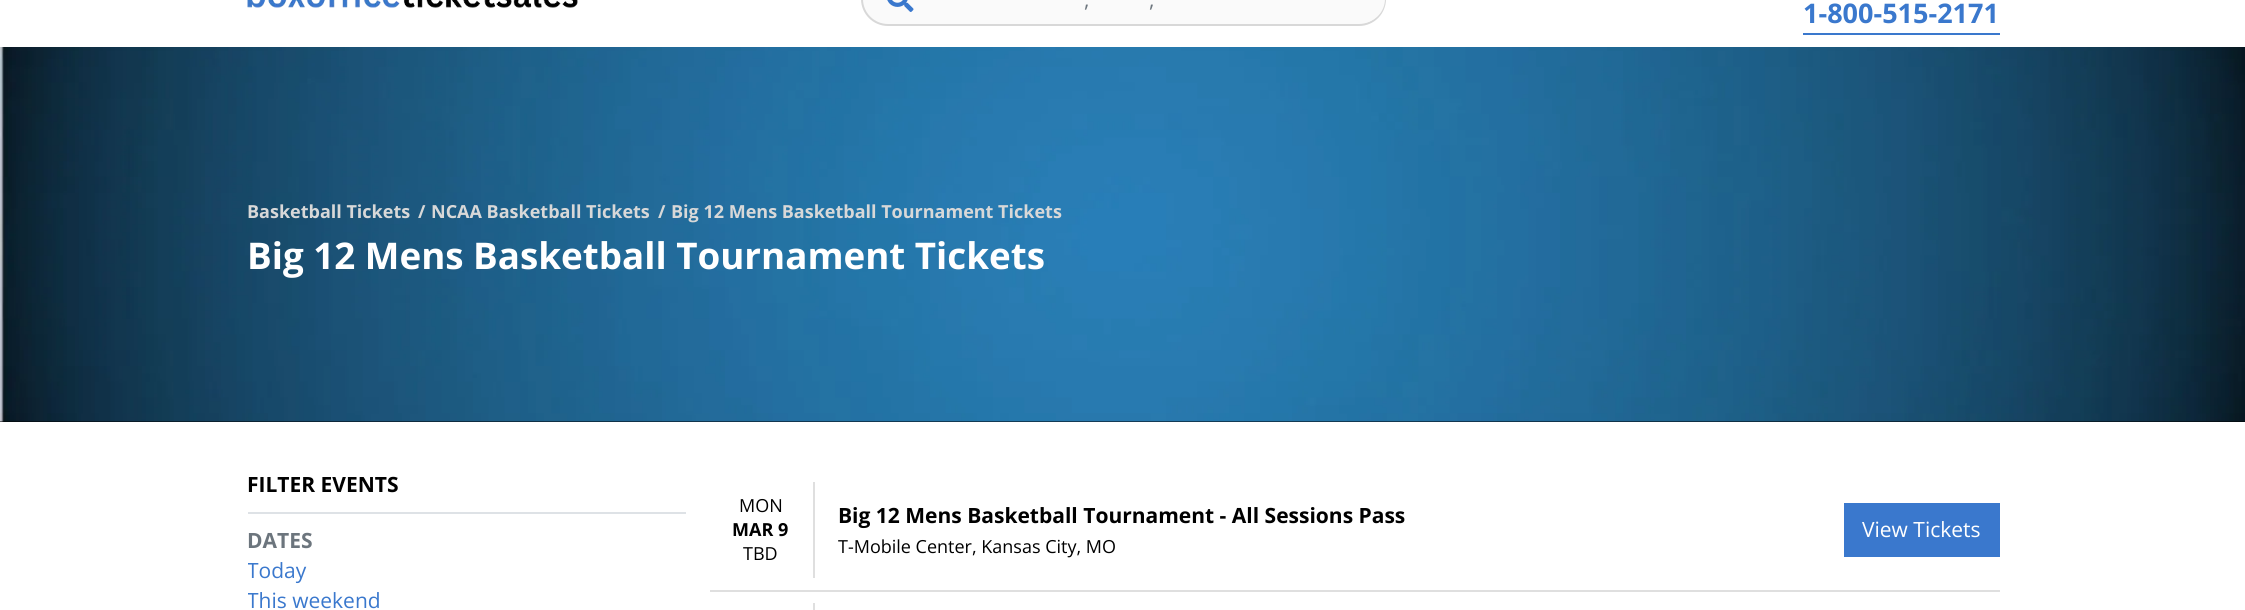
import math
import cairo

surface = cairo.ImageSurface(cairo.Format.RGB24, 2245, 610)
ctx = cairo.Context(surface)
options = cairo.FontOptions()
options.set_hint_metrics(cairo.HintMetrics.OFF)
options.set_hint_style(cairo.HintStyle.NONE)
ctx.set_font_options(options)
ctx.set_miter_limit(4)


def ink(r, g, b):
    ctx.set_source_rgb(r / 255, g / 255, b / 255)


def write(x, y, s, family, size, color, bold=False, italic=False):
    ctx.select_font_face(family, cairo.FontSlant.ITALIC if italic else cairo.FontSlant.NORMAL, cairo.FontWeight.BOLD if bold else cairo.FontWeight.NORMAL)
    ctx.set_font_size(size)
    ink(*color)
    ctx.move_to(x, y)
    ctx.show_text(s)


def block(x, y, w, h, *color):
    ink(*color)
    ctx.rectangle(x, y, w, h)
    ctx.fill()


def round_path(x, y, w, h, r):
    ctx.new_sub_path()
    for i, (u, v) in enumerate([(x + w - r, y + h - r), (x + r, y + h - r), (x + r, y + r), (x + w - r, y + r)]):
        ctx.arc(u, v, r, i * math.pi / 2, (i + 1) * math.pi / 2)
    ctx.close_path()


def paste(path, x, y, w, h):
    ctx.save()
    ctx.set_source_surface(cairo.ImageSurface.create_from_png(path), x, y)
    ctx.rectangle(x, y, w, h)
    ctx.fill()
    ctx.restore()


s1 = dict(family="Open Sans", size=21, color=(108, 117, 125))
s2 = dict(family="Open Sans", size=27, color=(58, 120, 205), bold=True)
s3 = dict(family="Open Sans", size=18, color=(216, 216, 216), bold=True)
s4 = dict(family="Open Sans", size=36.75, color=(255, 255, 255), bold=True)
s5 = dict(family="Open Sans", size=21, color=(0, 0, 0), bold=True)
s6 = dict(family="Open Sans", size=21, color=(108, 117, 125), bold=True)
s7 = dict(family="Open Sans", size=21, color=(58, 120, 205))
s8 = dict(family="Open Sans", size=18, color=(0, 0, 0))
s9 = dict(family="Open Sans", size=18, color=(0, 0, 0), bold=True)
s10 = dict(family="Open Sans", size=21, color=(255, 255, 255))

ink(255, 255, 255)
ctx.paint()
paste("pic1.png", 247, 0, 331, 8)
ink(250, 250, 250)
round_path(862, -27, 523, 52, 26)
ctx.fill_preserve()
ink(216, 216, 216)
ctx.stroke()
paste("pic2.png", 887, 0, 27, 12)
ink(250, 250, 250)
round_path(914, -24, 471, 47, 24)
ctx.fill()
write(1084, 7, ",", **s1)
write(1149, 7, ",", **s1)
block(1803, 33, 197, 2, 58, 120, 205)
write(1803, 23, "1-800-515-2171", **s2)
block(0, 421, 2245, 1, 0, 0, 0)
paste("pic3.png", 0, 47, 2245, 375)
write(247, 218, "Basketball Tickets", **s3)
write(418, 218, "/", **s3)
write(431, 218, "NCAA Basketball Tickets", **s3)
write(658, 218, "/", **s3)
write(671, 218, "Big 12 Mens Basketball Tournament Tickets", **s3)
write(247, 269, "Big 12 Mens Basketball Tournament Tickets", **s4)
block(248, 512, 438, 2, 222, 226, 230)
write(247, 492, "FILTER EVENTS", **s5)
write(247, 548, "DATES", **s6)
ctx.save()
ctx.rectangle(248, 470, 1752, 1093)
ctx.clip()
write(247, 578, "Today", **s7)
write(247, 608, "This weekend", **s7)
ctx.restore()
block(710, 590, 1290, 2, 223, 223, 223)
block(813, 482, 2, 96, 223, 223, 223)
write(739, 512, "MON", **s8)
write(732, 536, "MAR 9", **s9)
write(743, 560, "TBD", **s8)
write(838, 523, "Big 12 Mens Basketball Tournament - All Sessions Pass", **s5)
write(838, 553, "T-Mobile Center, Kansas City, MO", **s8)
block(1844, 503, 156, 54, 58, 120, 205)
write(1862, 537, "View Tickets", **s10)
block(813, 603, 2, 7, 223, 223, 223)
surface.write_to_png("screenshot.png")
